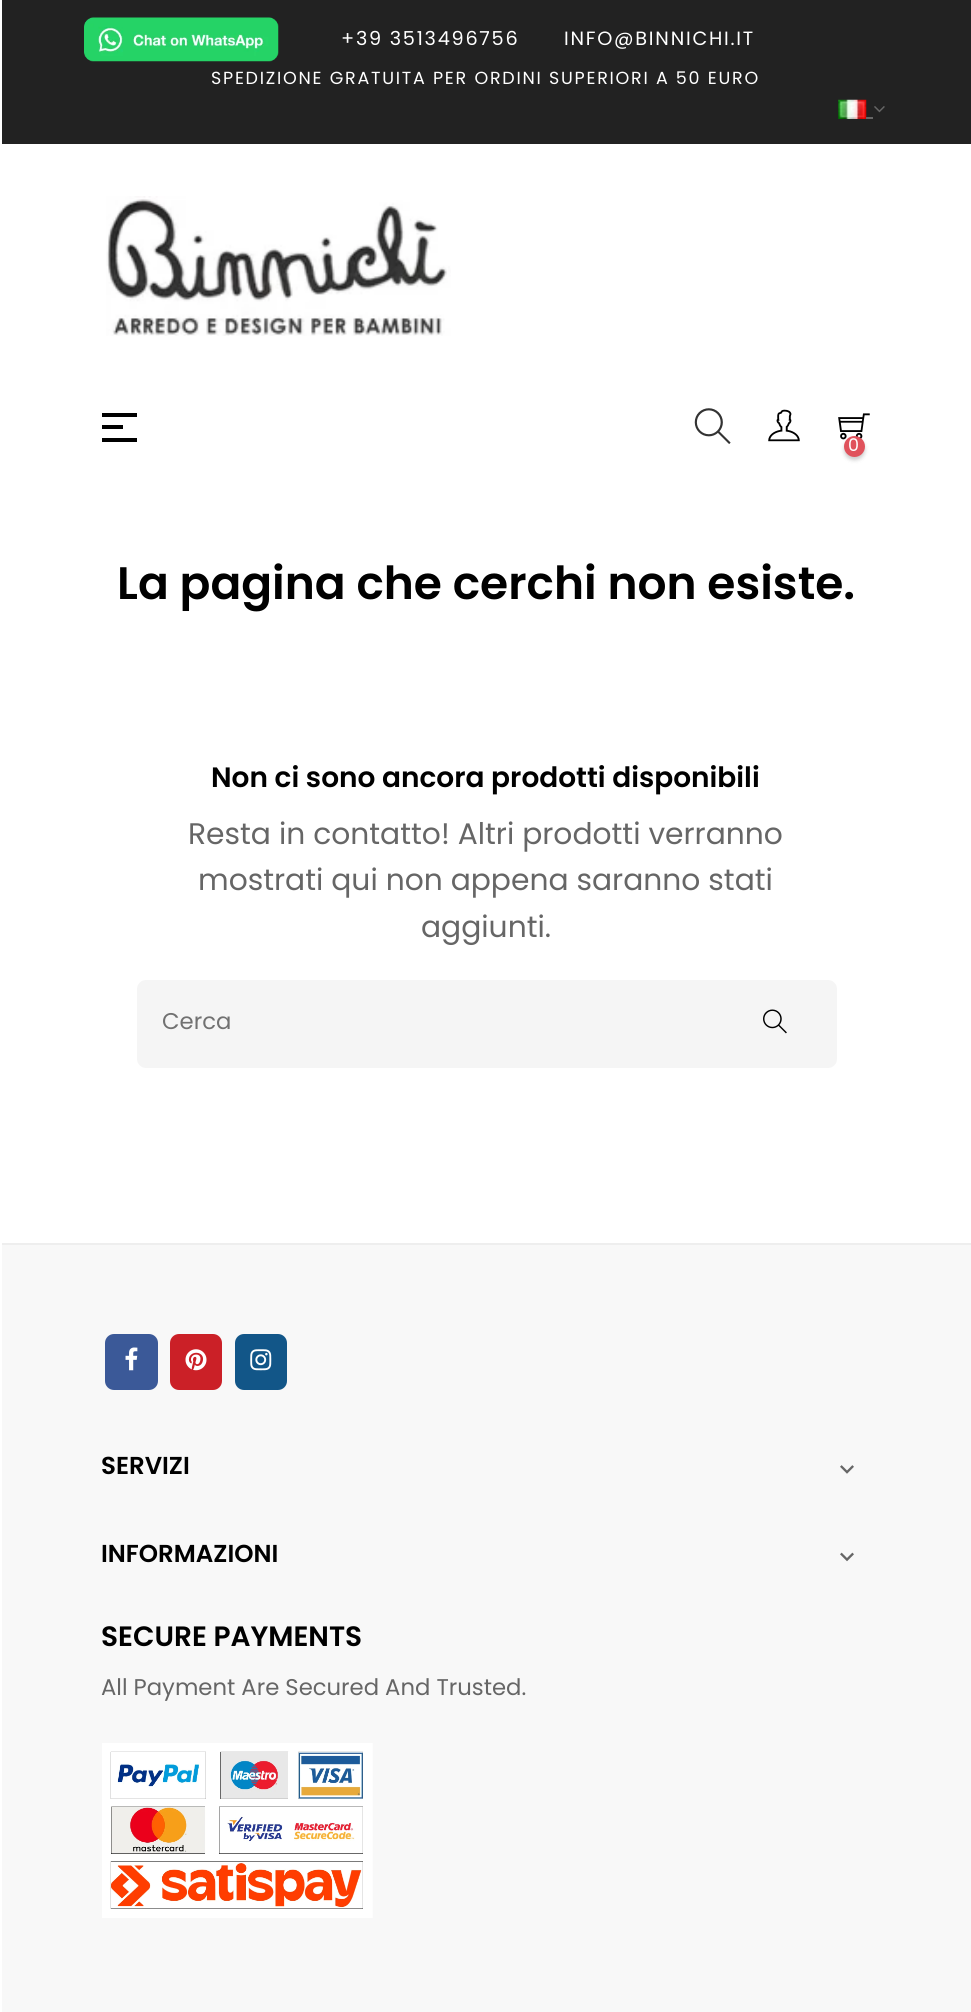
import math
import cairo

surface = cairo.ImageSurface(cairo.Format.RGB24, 971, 2012)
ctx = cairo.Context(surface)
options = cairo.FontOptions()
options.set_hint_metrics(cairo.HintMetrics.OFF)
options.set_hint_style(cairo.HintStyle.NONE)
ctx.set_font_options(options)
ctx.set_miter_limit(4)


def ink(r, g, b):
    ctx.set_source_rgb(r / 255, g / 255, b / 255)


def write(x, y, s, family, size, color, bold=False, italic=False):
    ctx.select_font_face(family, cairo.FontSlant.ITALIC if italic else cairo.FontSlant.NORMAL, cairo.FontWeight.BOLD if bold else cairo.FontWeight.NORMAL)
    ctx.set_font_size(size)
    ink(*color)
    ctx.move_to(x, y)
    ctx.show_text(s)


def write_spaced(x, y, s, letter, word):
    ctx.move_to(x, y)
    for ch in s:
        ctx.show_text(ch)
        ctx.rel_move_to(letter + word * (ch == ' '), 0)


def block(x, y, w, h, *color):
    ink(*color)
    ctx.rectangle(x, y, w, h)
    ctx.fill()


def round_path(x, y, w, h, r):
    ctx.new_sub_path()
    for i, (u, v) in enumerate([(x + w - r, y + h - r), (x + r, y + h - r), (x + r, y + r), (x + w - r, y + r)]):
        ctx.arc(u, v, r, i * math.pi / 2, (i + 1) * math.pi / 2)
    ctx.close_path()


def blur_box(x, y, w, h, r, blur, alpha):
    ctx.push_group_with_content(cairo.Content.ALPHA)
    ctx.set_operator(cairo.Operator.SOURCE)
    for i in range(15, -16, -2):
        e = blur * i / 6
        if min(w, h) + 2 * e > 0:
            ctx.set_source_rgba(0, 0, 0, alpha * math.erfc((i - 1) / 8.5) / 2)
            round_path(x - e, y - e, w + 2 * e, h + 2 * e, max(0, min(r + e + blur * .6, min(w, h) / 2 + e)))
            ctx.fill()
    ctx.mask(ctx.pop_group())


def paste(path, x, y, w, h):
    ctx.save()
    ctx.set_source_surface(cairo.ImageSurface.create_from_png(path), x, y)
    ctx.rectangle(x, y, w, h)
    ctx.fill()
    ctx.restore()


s1 = dict(family="Poppins", size=17.5, color=(255, 255, 255))
s2 = dict(family="Poppins SemiBold", size=45.5, color=(0, 0, 0))
s3 = dict(family="Poppins SemiBold", size=28, color=(0, 0, 0))
s4 = dict(family="Poppins", size=29.75, color=(102, 102, 102))
s5 = dict(family="Poppins", size=22.75, color=(113, 113, 113))
s6 = dict(family="Poppins SemiBold", size=24.5, color=(0, 0, 0))
s7 = dict(family="Poppins", size=22.75, color=(102, 102, 102))

ink(255, 255, 255)
ctx.paint()
block(2, 0, 969, 144, 34, 34, 34)
paste("pic1.png", 84, 17, 195, 45)
ctx.select_font_face("Poppins")
ctx.set_font_size(19.25)
ink(255, 255, 255)
write_spaced(341, 45, "+39 3513496756", 1.75, 0)
write_spaced(564, 45, "INFO@BINNICHI.IT", 1.75, 0)
ctx.set_font_size(17.5)
write_spaced(211, 84, "SPEDIZIONE GRATUITA PER ORDINI SUPERIORI A 50 EURO", 1.75, 0)
paste("pic2.png", 838, 99, 29, 20)
paste("pic3.png", 874, 106, 11, 7)
block(866, 117, 7, 2, 102, 102, 102)
paste("pic4.png", 106, 196, 345, 140)
block(102, 413, 35, 4, 0, 0, 0)
block(102, 438, 35, 4, 0, 0, 0)
block(102, 425, 21, 4, 0, 0, 0)
paste("pic5.png", 694, 408, 37, 36)
paste("pic6.png", 768, 409, 32, 33)
paste("pic7.png", 838, 413, 32, 27)
ink(0, 0, 0)
blur_box(844, 439, 21, 21, 10.5, 2, 0.2)
ink(224, 82, 92)
ctx.arc(854.5, 446.5, 10.5, 0, 2 * math.pi)
ctx.fill()
write(848, 451, "0", **s1)
write(117, 599, "La pagina che cerchi non esiste.", **s2)
write(211, 787, "Non ci sono ancora prodotti disponibili", **s3)
write(188, 844, "Resta in contatto! Altri prodotti verranno", **s4)
write(198, 890, "mostrati qui non appena saranno stati", **s4)
write(421, 937, "aggiunti.", **s4)
ink(245, 245, 245)
round_path(137, 980, 700, 88, 9)
ctx.fill()
write(162, 1029, "Cerca", **s5)
paste("pic8.png", 763, 1009, 24, 25)
block(2, 1245, 969, 767, 248, 248, 248)
block(2, 1243, 969, 2, 238, 238, 238)
ink(59, 89, 152)
round_path(105, 1334, 53, 56, 9)
ctx.fill()
paste("pic9.png", 125, 1347, 13, 24)
ink(203, 32, 39)
round_path(170, 1334, 52, 56, 9)
ctx.fill()
paste("pic10.png", 185, 1349, 22, 22)
ink(18, 86, 136)
round_path(235, 1334, 52, 56, 9)
ctx.fill()
paste("pic11.png", 250, 1349, 22, 22)
write(101, 1474, "SERVIZI", **s6)
paste("pic12.png", 840, 1465, 14, 9)
write(101, 1562, "INFORMAZIONI", **s6)
paste("pic13.png", 840, 1552, 14, 10)
write(101, 1646, "SECURE PAYMENTS", **s3)
write(101, 1695, "All Payment Are Secured And Trusted.", **s7)
paste("pic14.png", 102, 1743, 271, 175)
surface.write_to_png("screenshot.png")
